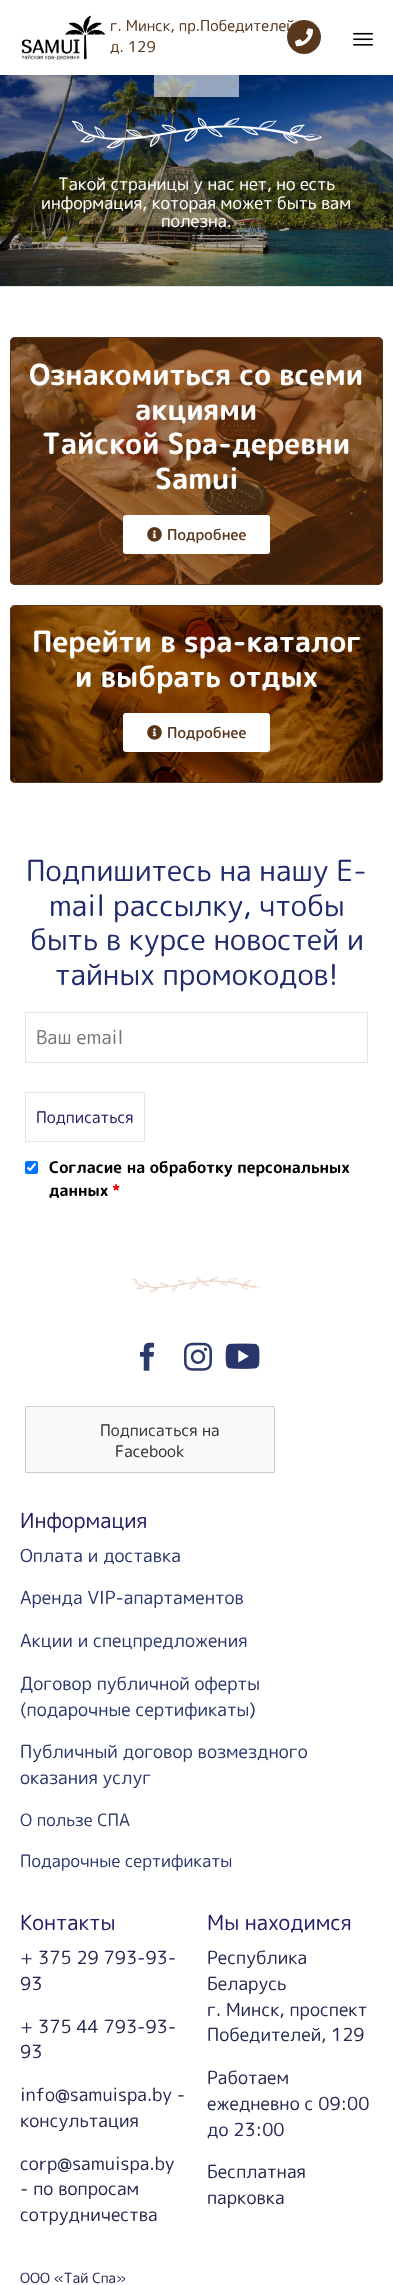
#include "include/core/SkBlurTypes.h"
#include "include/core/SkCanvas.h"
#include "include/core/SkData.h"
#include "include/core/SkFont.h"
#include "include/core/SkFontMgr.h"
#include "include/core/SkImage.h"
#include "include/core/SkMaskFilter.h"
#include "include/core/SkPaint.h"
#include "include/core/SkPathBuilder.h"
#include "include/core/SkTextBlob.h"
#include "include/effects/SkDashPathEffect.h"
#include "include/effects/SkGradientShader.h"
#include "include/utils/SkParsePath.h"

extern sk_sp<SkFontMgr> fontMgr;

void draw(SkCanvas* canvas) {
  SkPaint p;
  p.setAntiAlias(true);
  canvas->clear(SK_ColorWHITE);
  canvas->drawImageRect(SkImages::DeferredFromEncodedData(SkData::MakeFromFileName("images/1.png")), SkRect::MakeLTRB(21, 15, 106, 60), SkSamplingOptions());
  canvas->drawImageRect(SkImages::DeferredFromEncodedData(SkData::MakeFromFileName("images/2.png")), SkRect::MakeLTRB(353, 32, 373, 46), SkSamplingOptions());
  p.setColor(SkColorSetRGB(89, 55, 29));
  canvas->drawCircle(304, 37, 17, p);
  canvas->drawImageRect(SkImages::DeferredFromEncodedData(SkData::MakeFromFileName("images/3.png")), SkRect::MakeLTRB(295, 28, 313, 47), SkSamplingOptions());
  canvas->drawImageRect(SkImages::DeferredFromEncodedData(SkData::MakeFromFileName("images/4.png")), SkRect::MakeLTRB(0, 75, 393, 286), SkSamplingOptions());
  p.setColor(SkColorSetRGB(228, 228, 228));
  canvas->drawRect(SkRect::MakeLTRB(0, 286, 393, 287), p);
  p.setColor(SkColorSetARGB(148, 255, 255, 255));
  canvas->drawRect(SkRect::MakeLTRB(154, 75, 239, 97), p);
  canvas->drawImageRect(SkImages::DeferredFromEncodedData(SkData::MakeFromFileName("images/5.png")), SkRect::MakeLTRB(72, 117, 322, 149), SkSamplingOptions());
  canvas->drawImageRect(SkImages::DeferredFromEncodedData(SkData::MakeFromFileName("images/6.png")), SkRect::MakeLTRB(10, 337, 383, 585), SkSamplingOptions());
  p.setStyle(SkPaint::kStroke_Style);
  p.setStrokeWidth(1);
  p.setColor(SkColorSetRGB(89, 55, 29));
  canvas->drawRoundRect(SkRect::MakeLTRB(10.5f, 337.5f, 382.5f, 584.5f), 4.5f, 4.5f, p);
  p.setStyle(SkPaint::kFill_Style);
  p.setColor(SkColorSetARGB(128, 92, 42, 0));
  canvas->drawRoundRect(SkRect::MakeLTRB(11, 338, 382, 584), 5, 5, p);
  p.setColor(SK_ColorWHITE);
  canvas->drawRoundRect(SkRect::MakeLTRB(123, 515, 270, 554), 3, 3, p);
  canvas->drawImageRect(SkImages::DeferredFromEncodedData(SkData::MakeFromFileName("images/7.png")), SkRect::MakeLTRB(147, 527, 162, 542), SkSamplingOptions());
  canvas->drawImageRect(SkImages::DeferredFromEncodedData(SkData::MakeFromFileName("images/8.png")), SkRect::MakeLTRB(10, 605, 383, 783), SkSamplingOptions());
  p.setStyle(SkPaint::kStroke_Style);
  p.setColor(SkColorSetRGB(89, 55, 29));
  canvas->drawRoundRect(SkRect::MakeLTRB(10.5f, 605.5f, 382.5f, 782.5f), 4.5f, 4.5f, p);
  p.setStyle(SkPaint::kFill_Style);
  p.setColor(SkColorSetARGB(94, 0, 0, 0));
  canvas->drawRoundRect(SkRect::MakeLTRB(11, 606, 382, 782), 5, 5, p);
  p.setColor(SK_ColorWHITE);
  canvas->drawRoundRect(SkRect::MakeLTRB(123, 713, 270, 752), 3, 3, p);
  canvas->drawImageRect(SkImages::DeferredFromEncodedData(SkData::MakeFromFileName("images/7.png")), SkRect::MakeLTRB(147, 725, 162, 740), SkSamplingOptions());
  p.setStyle(SkPaint::kStroke_Style);
  p.setColor(SkColorSetRGB(228, 228, 228));
  canvas->drawRect(SkRect::MakeLTRB(25.5f, 1012.5f, 367.5f, 1062.5f), p);
  canvas->drawRect(SkRect::MakeLTRB(25.5f, 1092.5f, 144.5f, 1141.5f), p);
  p.setStyle(SkPaint::kFill_Style);
  p.setColor(SkColorSetRGB(0, 117, 255));
  canvas->drawRoundRect(SkRect::MakeLTRB(25, 1161, 38, 1174), 2, 2, p);
  p.setStyle(SkPaint::kStroke_Style);
  p.setStrokeWidth(2.1f);
  p.setColor(SK_ColorWHITE);
  canvas->drawPath(SkPathBuilder().moveTo(27.5f, 1167.5f).lineTo(30, 1170).lineTo(35.5f, 1163.5f).detach(), p);
  canvas->drawImageRect(SkImages::DeferredFromEncodedData(SkData::MakeFromFileName("images/9.png")), SkRect::MakeLTRB(132, 1276, 261, 1293), SkSamplingOptions());
  canvas->drawImageRect(SkImages::DeferredFromEncodedData(SkData::MakeFromFileName("images/10.png")), SkRect::MakeLTRB(140, 1342, 154, 1371), SkSamplingOptions());
  canvas->drawImageRect(SkImages::DeferredFromEncodedData(SkData::MakeFromFileName("images/11.png")), SkRect::MakeLTRB(184, 1342, 212, 1371), SkSamplingOptions());
  canvas->drawImageRect(SkImages::DeferredFromEncodedData(SkData::MakeFromFileName("images/12.png")), SkRect::MakeLTRB(225, 1343, 260, 1369), SkSamplingOptions());
  p.setStyle(SkPaint::kFill_Style);
  p.setColor(SkColorSetRGB(250, 250, 250));
  canvas->drawRoundRect(SkRect::MakeLTRB(25.5f, 1406.5f, 274.5f, 1472.5f), 0.5f, 0.5f, p);
  p.setStyle(SkPaint::kStroke_Style);
  p.setStrokeWidth(1);
  p.setColor(SkColorSetRGB(204, 204, 204));
  canvas->drawRoundRect(SkRect::MakeLTRB(25.5f, 1406.5f, 274.5f, 1472.5f), 0.5f, 0.5f, p);
  SkFont font1(fontMgr->matchFamilyStyle("Rounded Mplus 1c", SkFontStyle::Normal()), 15);
  font1.setSubpixel(true);
  p.setStyle(SkPaint::kFill_Style);
  p.setColor(SkColorSetRGB(89, 55, 29));
  canvas->drawString("г. Минск, пр.Победителей", 110, 31, font1, p);
  canvas->drawString("д. 129", 110, 52, font1, p);
  SkFont font2(fontMgr->matchFamilyStyle("Rounded Mplus 1c", SkFontStyle::Normal()), 17);
  font2.setSubpixel(true);
  p.setColor(SK_ColorWHITE);
  canvas->drawString("Такой страницы у нас нет, но есть", 58, 190, font2, p);
  canvas->drawString("информация, которая может быть вам", 41, 209, font2, p);
  canvas->drawString("полезна.", 161, 227, font2, p);
  SkFont font3(fontMgr->matchFamilyStyle("Rounded Mplus 1c Bold", SkFontStyle::Bold()), 29);
  font3.setSubpixel(true);
  canvas->drawString("Ознакомиться со всеми", 29, 385, font3, p);
  canvas->drawString("акциями", 135, 420, font3, p);
  canvas->drawString("Тайской Spa-деревни", 42, 454, font3, p);
  canvas->drawString("Samui", 155, 489, font3, p);
  SkFont font4(fontMgr->matchFamilyStyle("Rounded Mplus 1c", SkFontStyle(500, SkFontStyle::kNormal_Width, SkFontStyle::kUpright_Slant)), 15);
  font4.setSubpixel(true);
  p.setColor(SkColorSetRGB(89, 55, 29));
  canvas->drawString("Подробнее", 167, 540, font4, p);
  p.setColor(SK_ColorWHITE);
  canvas->drawString("Перейти в spa-каталог", 32, 652, font3, p);
  canvas->drawString("и выбрать отдых", 75, 687, font3, p);
  p.setColor(SkColorSetRGB(89, 55, 29));
  canvas->drawString("Подробнее", 167, 738, font4, p);
  SkFont font5(fontMgr->matchFamilyStyle("Rounded Mplus 1c", SkFontStyle::Normal()), 29);
  font5.setSubpixel(true);
  p.setColor(SkColorSetRGB(32, 43, 107));
  canvas->drawString("Подпишитесь на нашу E-", 26, 881, font5, p);
  canvas->drawString("mail рассылку, чтобы", 49, 916, font5, p);
  canvas->drawString("быть в курсе новостей и", 30, 950, font5, p);
  canvas->drawString("тайных промокодов!", 55, 985, font5, p);
  SkFont font6(fontMgr->matchFamilyStyle("Rounded Mplus 1c", SkFontStyle::Normal()), 19);
  font6.setSubpixel(true);
  p.setColor(SkColorSetRGB(117, 117, 117));
  canvas->drawString("Ваш email", 36, 1044, font6, p);
  SkFont font7(fontMgr->matchFamilyStyle("Rounded Mplus 1c", SkFontStyle::Normal()), 16);
  font7.setSubpixel(true);
  p.setColor(SkColorSetRGB(37, 32, 102));
  canvas->drawString("Подписаться", 36, 1123, font7, p);
  SkFont font8(fontMgr->matchFamilyStyle("Rounded Mplus 1c Bold", SkFontStyle::Bold()), 16);
  font8.setSubpixel(true);
  p.setColor(SK_ColorBLACK);
  canvas->drawString("Согласие на обработку персональных", 49, 1173, font8, p);
  canvas->drawString("данных", 49, 1196, font8, p);
  p.setColor(SkColorSetRGB(232, 0, 0));
  canvas->drawString("*", 112, 1196, font8, p);
  p.setColor(SkColorSetRGB(51, 51, 51));
  canvas->drawString("Подписаться на", 100, 1436, font7, p);
  canvas->drawString("Facebook", 115, 1457, font7, p);
  SkFont font9(fontMgr->matchFamilyStyle("Rounded Mplus 1c", SkFontStyle::Normal()), 21);
  font9.setSubpixel(true);
  p.setColor(SkColorSetRGB(37, 32, 102));
  canvas->drawString("Информация", 20, 1528, font9, p);
  SkFont font10(fontMgr->matchFamilyStyle("Rounded Mplus 1c", SkFontStyle::Normal()), 18);
  font10.setSubpixel(true);
  p.setColor(SkColorSetRGB(44, 57, 107));
  canvas->drawString("Оплата и доставка", 20, 1562, font10, p);
  canvas->drawString("Аренда VIP-апартаментов", 20, 1604, font10, p);
  canvas->drawString("Акции и спецпредложения", 20, 1647, font10, p);
  canvas->drawString("Договор публичной оферты", 20, 1690, font10, p);
  canvas->drawString("(подарочные сертификаты)", 20, 1716, font10, p);
  canvas->drawString("Публичный договор возмездного", 20, 1758, font10, p);
  canvas->drawString("оказания услуг", 20, 1784, font10, p);
  canvas->drawString("О пользе СПА", 20, 1826, font2, p);
  canvas->drawString("Подарочные сертификаты", 20, 1867, font2, p);
  p.setColor(SkColorSetRGB(37, 32, 102));
  canvas->drawString("Контакты", 20, 1930, font9, p);
  p.setColor(SkColorSetRGB(40, 42, 81));
  canvas->drawString("+ 375 29 793-93-", 20, 1964, font10, p);
  canvas->drawString("93", 20, 1990, font10, p);
  canvas->drawString("+ 375 44 793-93-", 20, 2033, font10, p);
  canvas->drawString("93", 20, 2058, font10, p);
  canvas->drawString("info@samuispa.by -", 20, 2101, font10, p);
  canvas->drawString("консультация", 20, 2127, font10, p);
  canvas->drawString("corp@samuispa.by", 20, 2170, font10, p);
  canvas->drawString("- по вопросам", 20, 2195, font10, p);
  canvas->drawString("сотрудничества", 20, 2221, font10, p);
  p.setColor(SkColorSetRGB(37, 32, 102));
  canvas->drawString("Мы находимся", 207, 1930, font9, p);
  p.setColor(SkColorSetRGB(40, 42, 81));
  canvas->drawString("Республика", 207, 1964, font10, p);
  canvas->drawString("Беларусь", 207, 1990, font10, p);
  canvas->drawString("г. Минск, проспект", 207, 2016, font10, p);
  canvas->drawString("Победителей, 129", 207, 2041, font10, p);
  canvas->drawString("Работаем", 207, 2084, font10, p);
  canvas->drawString("ежедневно с 09:00", 207, 2110, font10, p);
  canvas->drawString("до 23:00", 207, 2136, font10, p);
  canvas->drawString("Бесплатная", 207, 2178, font10, p);
  canvas->drawString("парковка", 207, 2204, font10, p);
  SkFont font11(fontMgr->matchFamilyStyle("Rounded Mplus 1c", SkFontStyle::Normal()), 14);
  font11.setSubpixel(true);
  canvas->drawString("ООО «Тай Спа»", 20, 2283, font11, p);
}
